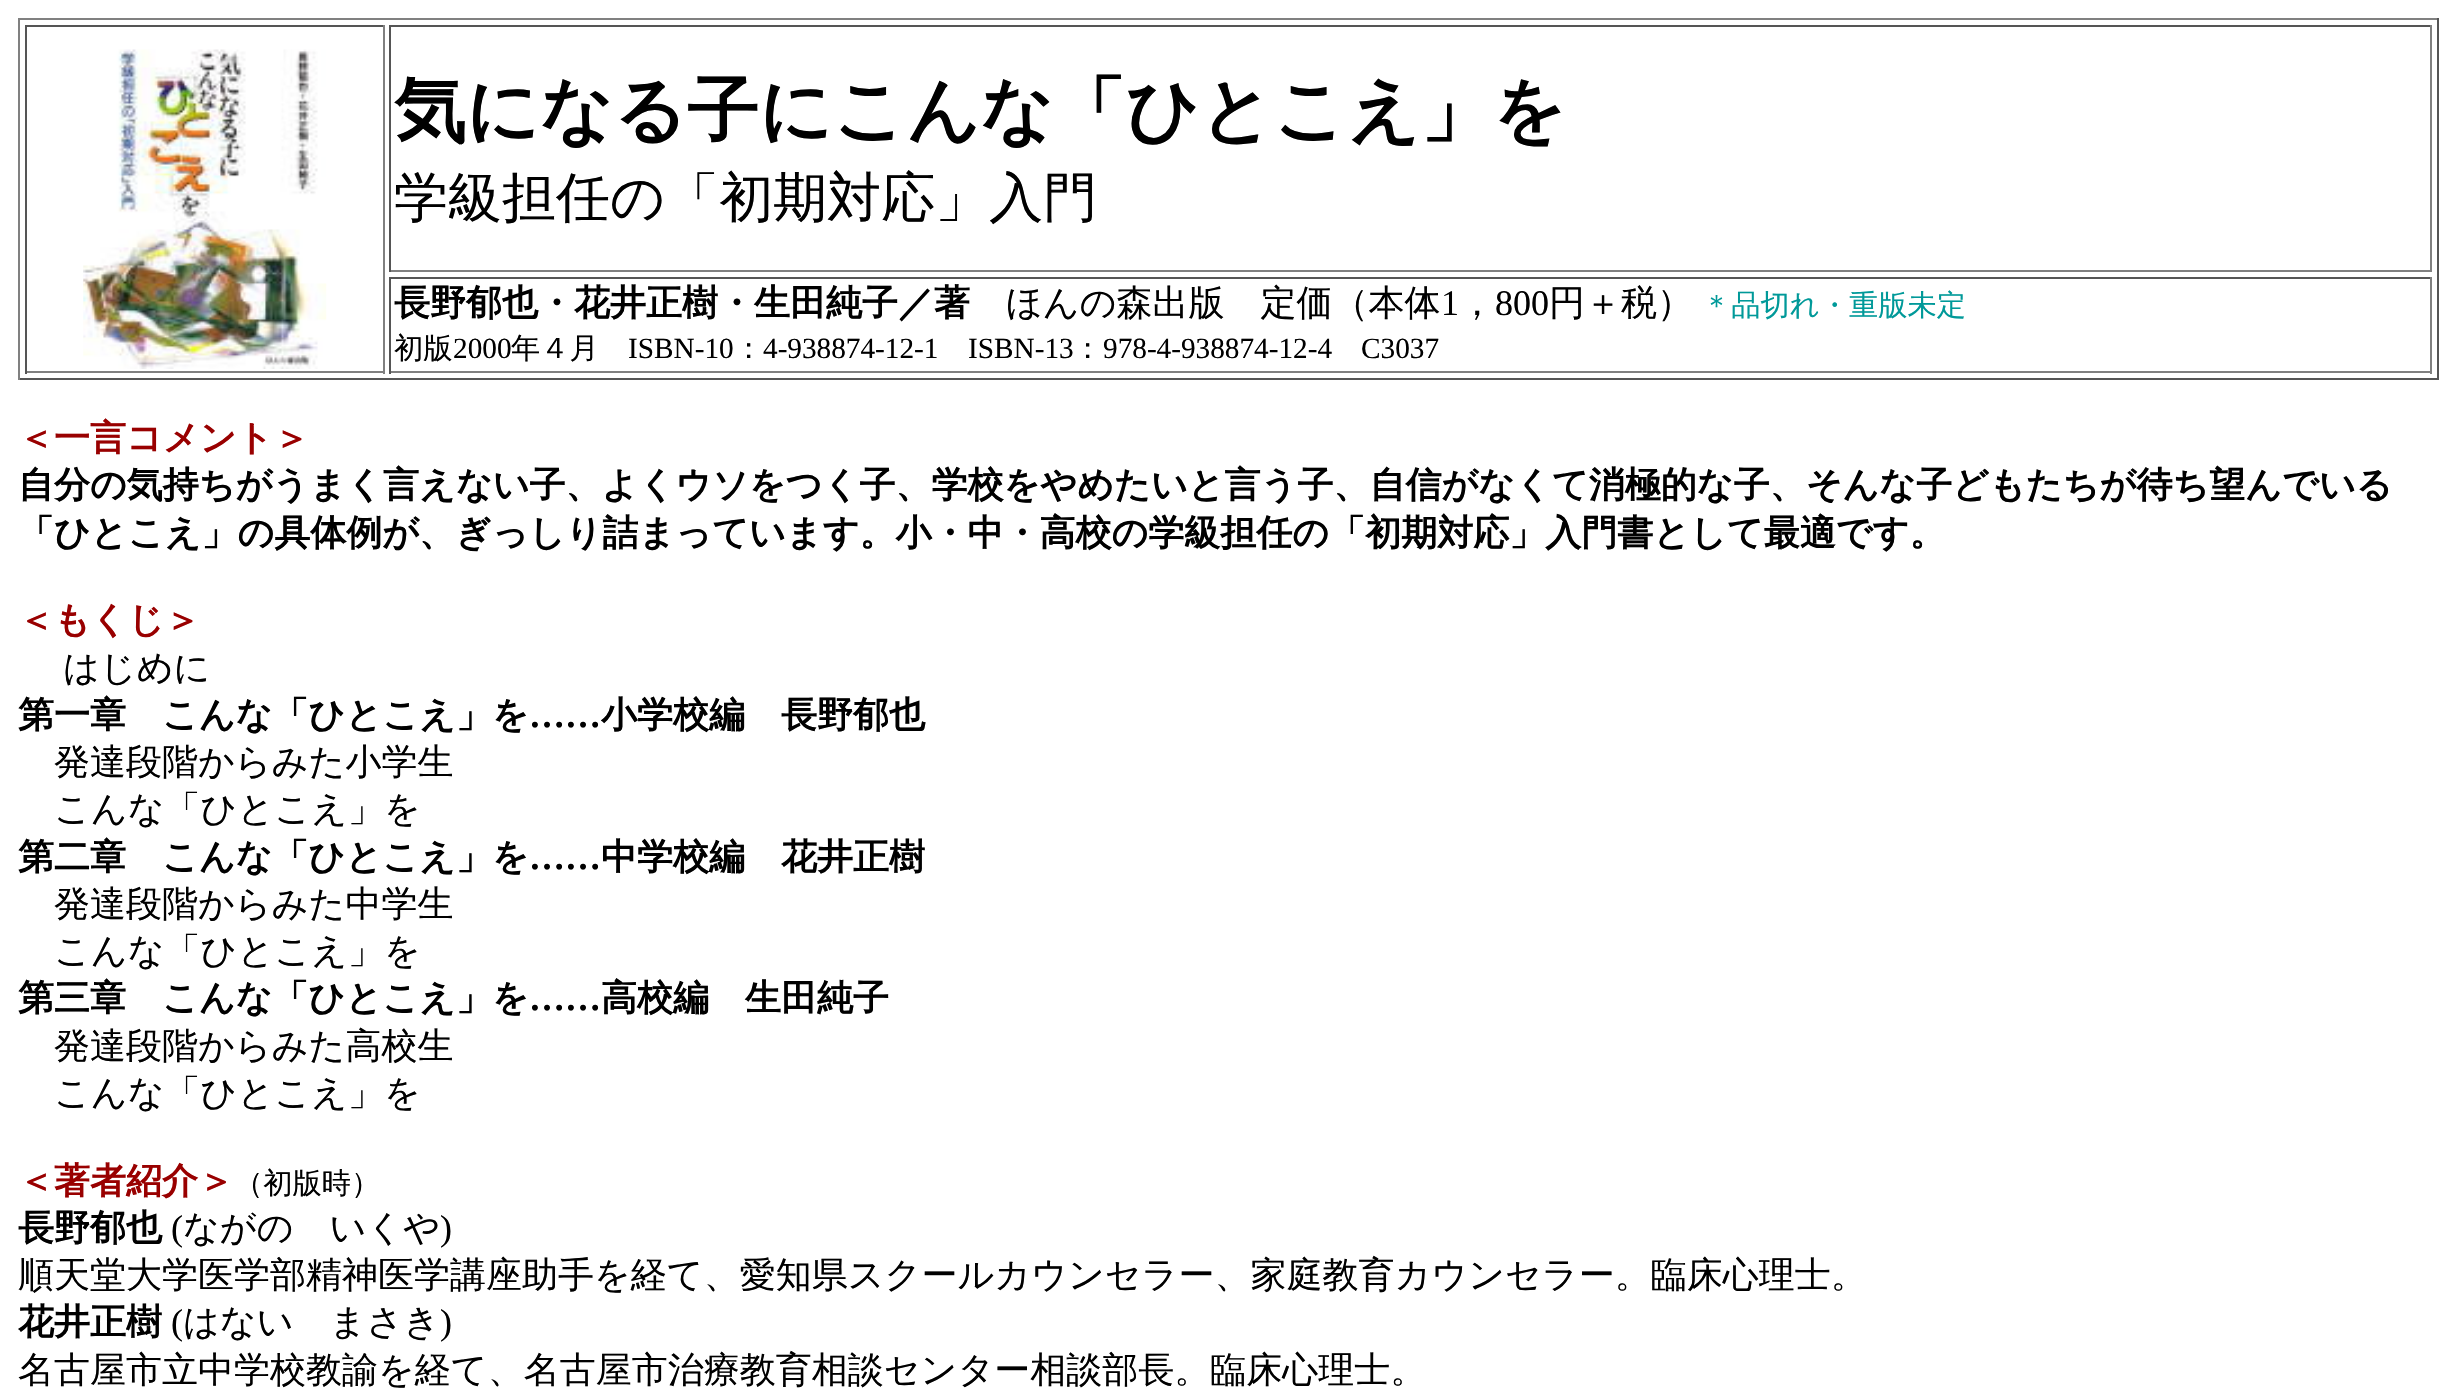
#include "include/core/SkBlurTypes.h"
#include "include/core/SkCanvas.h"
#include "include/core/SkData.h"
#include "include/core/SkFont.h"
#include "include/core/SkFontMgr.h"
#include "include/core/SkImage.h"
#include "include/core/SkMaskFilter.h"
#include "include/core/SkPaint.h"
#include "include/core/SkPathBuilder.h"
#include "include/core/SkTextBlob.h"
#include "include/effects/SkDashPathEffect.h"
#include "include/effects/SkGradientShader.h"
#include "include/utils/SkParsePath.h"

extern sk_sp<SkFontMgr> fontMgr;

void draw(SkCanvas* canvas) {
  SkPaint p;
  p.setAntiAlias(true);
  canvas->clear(SK_ColorWHITE);
  p.setColor(SkColorSetRGB(128, 128, 128));
  canvas->drawRect(SkRect::MakeLTRB(18, 18, 2439, 20), p);
  p.setColor(SkColorSetRGB(85, 85, 85));
  canvas->drawRect(SkRect::MakeLTRB(2437, 18, 2439, 380), p);
  canvas->drawRect(SkRect::MakeLTRB(18, 378, 2439, 380), p);
  p.setColor(SkColorSetRGB(128, 128, 128));
  canvas->drawRect(SkRect::MakeLTRB(18, 18, 20, 380), p);
  p.setColor(SkColorSetRGB(85, 85, 85));
  canvas->drawRect(SkRect::MakeLTRB(25, 25, 385, 27), p);
  p.setColor(SkColorSetRGB(128, 128, 128));
  canvas->drawRect(SkRect::MakeLTRB(383, 25, 385, 374), p);
  canvas->drawRect(SkRect::MakeLTRB(25, 371, 385, 373), p);
  p.setColor(SkColorSetRGB(85, 85, 85));
  canvas->drawRect(SkRect::MakeLTRB(25, 25, 27, 374), p);
  canvas->drawImageRect(SkImages::DeferredFromEncodedData(SkData::MakeFromFileName("images/1.png")), SkRect::MakeLTRB(83, 49, 327, 369), SkSamplingOptions());
  canvas->drawRect(SkRect::MakeLTRB(389, 25, 2432, 27), p);
  p.setColor(SkColorSetRGB(128, 128, 128));
  canvas->drawRect(SkRect::MakeLTRB(2430, 25, 2432, 272), p);
  canvas->drawRect(SkRect::MakeLTRB(389, 270, 2432, 272), p);
  p.setColor(SkColorSetRGB(85, 85, 85));
  canvas->drawRect(SkRect::MakeLTRB(389, 25, 391, 272), p);
  canvas->drawRect(SkRect::MakeLTRB(389, 277, 2432, 279), p);
  p.setColor(SkColorSetRGB(128, 128, 128));
  canvas->drawRect(SkRect::MakeLTRB(2430, 277, 2432, 374), p);
  canvas->drawRect(SkRect::MakeLTRB(389, 371, 2432, 373), p);
  p.setColor(SkColorSetRGB(85, 85, 85));
  canvas->drawRect(SkRect::MakeLTRB(389, 277, 391, 374), p);
  SkFont font1(fontMgr->matchFamilyStyle("WenQuanYi Zen Hei", SkFontStyle::Bold()), 72);
  font1.setSubpixel(true);
  p.setColor(SK_ColorBLACK);
  canvas->drawString("気になる子にこんな「ひとこえ」を", 394, 135, font1, p);
  SkFont font2(fontMgr->matchFamilyStyle("WenQuanYi Zen Hei", SkFontStyle(500, SkFontStyle::kNormal_Width, SkFontStyle::kUpright_Slant)), 54);
  font2.setSubpixel(true);
  canvas->drawString("学級担任の「初期対応」入門", 394, 216, font2, p);
  SkFont font3(fontMgr->matchFamilyStyle("WenQuanYi Zen Hei", SkFontStyle::Bold()), 36);
  font3.setSubpixel(true);
  canvas->drawString("長野郁也・花井正樹・生田純子／著", 394, 315, font3, p);
  SkFont font4(fontMgr->matchFamilyStyle("WenQuanYi Zen Hei", SkFontStyle(500, SkFontStyle::kNormal_Width, SkFontStyle::kUpright_Slant)), 36);
  font4.setSubpixel(true);
  canvas->drawString("ほんの森出版　定価（本体", 1006, 315, font4, p);
  SkFont font5(fontMgr->matchFamilyStyle("Liberation Serif", SkFontStyle::Normal()), 36);
  font5.setSubpixel(true);
  canvas->drawString("1", 1441, 315, font5, p);
  canvas->drawString("，", 1459, 315, font4, p);
  canvas->drawString("800", 1495, 315, font5, p);
  canvas->drawString("円＋税）", 1549, 315, font4, p);
  SkFont font6(fontMgr->matchFamilyStyle("WenQuanYi Zen Hei", SkFontStyle(500, SkFontStyle::kNormal_Width, SkFontStyle::kUpright_Slant)), 29.25f);
  font6.setSubpixel(true);
  p.setColor(SkColorSetRGB(0, 153, 153));
  canvas->drawString("＊品切れ・重版未定", 1702, 315, font6, p);
  p.setColor(SK_ColorBLACK);
  canvas->drawString("初版", 394, 358, font6, p);
  SkFont font7(fontMgr->matchFamilyStyle("Liberation Serif", SkFontStyle::Normal()), 29.25f);
  font7.setSubpixel(true);
  canvas->drawString("2000", 453, 358, font7, p);
  canvas->drawString("年４月", 511, 358, font6, p);
  canvas->drawString("ISBN-10", 628, 358, font7, p);
  canvas->drawString("：", 734, 358, font6, p);
  canvas->drawString("4-938874-12-1", 763, 358, font7, p);
  canvas->drawString("ISBN-13", 968, 358, font7, p);
  canvas->drawString("：", 1073, 358, font6, p);
  canvas->drawString("978-4-938874-12-4", 1103, 358, font7, p);
  canvas->drawString("C3037", 1361, 358, font7, p);
  p.setColor(SkColorSetRGB(153, 0, 0));
  canvas->drawString("＜一言コメント＞", 18, 450, font3, p);
  p.setColor(SK_ColorBLACK);
  canvas->drawString("自分の気持ちがうまく言えない子、よくウソをつく子、学校をやめたいと言う子、自信がなくて消極的な子、そんな子どもたちが待ち望んでいる", 18, 497, font3, p);
  canvas->drawString("「ひとこえ」の具体例が、ぎっしり詰まっています。小・中・高校の学級担任の「初期対応」入門書として最適です。", 18, 545, font3, p);
  p.setColor(SkColorSetRGB(153, 0, 0));
  canvas->drawString("＜もくじ＞", 18, 632, font3, p);
  p.setColor(SK_ColorBLACK);
  canvas->drawString("はじめに", 63, 680, font4, p);
  canvas->drawString("第一章　こんな「ひとこえ」を", 18, 727, font3, p);
  SkFont font8(fontMgr->matchFamilyStyle("Liberation Serif", SkFontStyle::Bold()), 36);
  font8.setSubpixel(true);
  canvas->drawString("……", 529, 727, font8, p);
  canvas->drawString("小学校編　長野郁也", 601, 727, font3, p);
  canvas->drawString("発達段階からみた小学生", 54, 774, font4, p);
  canvas->drawString("こんな「ひとこえ」を", 54, 821, font4, p);
  canvas->drawString("第二章　こんな「ひとこえ」を", 18, 869, font3, p);
  canvas->drawString("……", 529, 869, font8, p);
  canvas->drawString("中学校編　花井正樹", 601, 869, font3, p);
  canvas->drawString("発達段階からみた中学生", 54, 916, font4, p);
  canvas->drawString("こんな「ひとこえ」を", 54, 963, font4, p);
  canvas->drawString("第三章　こんな「ひとこえ」を", 18, 1010, font3, p);
  canvas->drawString("……", 529, 1010, font8, p);
  canvas->drawString("高校編　生田純子", 601, 1010, font3, p);
  canvas->drawString("発達段階からみた高校生", 54, 1058, font4, p);
  canvas->drawString("こんな「ひとこえ」を", 54, 1105, font4, p);
  p.setColor(SkColorSetRGB(153, 0, 0));
  canvas->drawString("＜著者紹介＞", 18, 1193, font3, p);
  p.setColor(SK_ColorBLACK);
  canvas->drawString("（初版時）", 234, 1193, font6, p);
  canvas->drawString("長野郁也", 18, 1240, font3, p);
  canvas->drawString("(", 171, 1240, font5, p);
  canvas->drawString("ながの　いくや", 183, 1240, font4, p);
  canvas->drawString(")", 440, 1240, font5, p);
  canvas->drawString("順天堂大学医学部精神医学講座助手を経て、愛知県スクールカウンセラー、家庭教育カウンセラー。臨床心理士。", 18, 1287, font4, p);
  canvas->drawString("花井正樹", 18, 1334, font3, p);
  canvas->drawString("(", 171, 1334, font5, p);
  canvas->drawString("はない　まさき", 183, 1334, font4, p);
  canvas->drawString(")", 440, 1334, font5, p);
  canvas->drawString("名古屋市立中学校教諭を経て、名古屋市治療教育相談センター相談部長。臨床心理士。", 18, 1382, font4, p);
}
